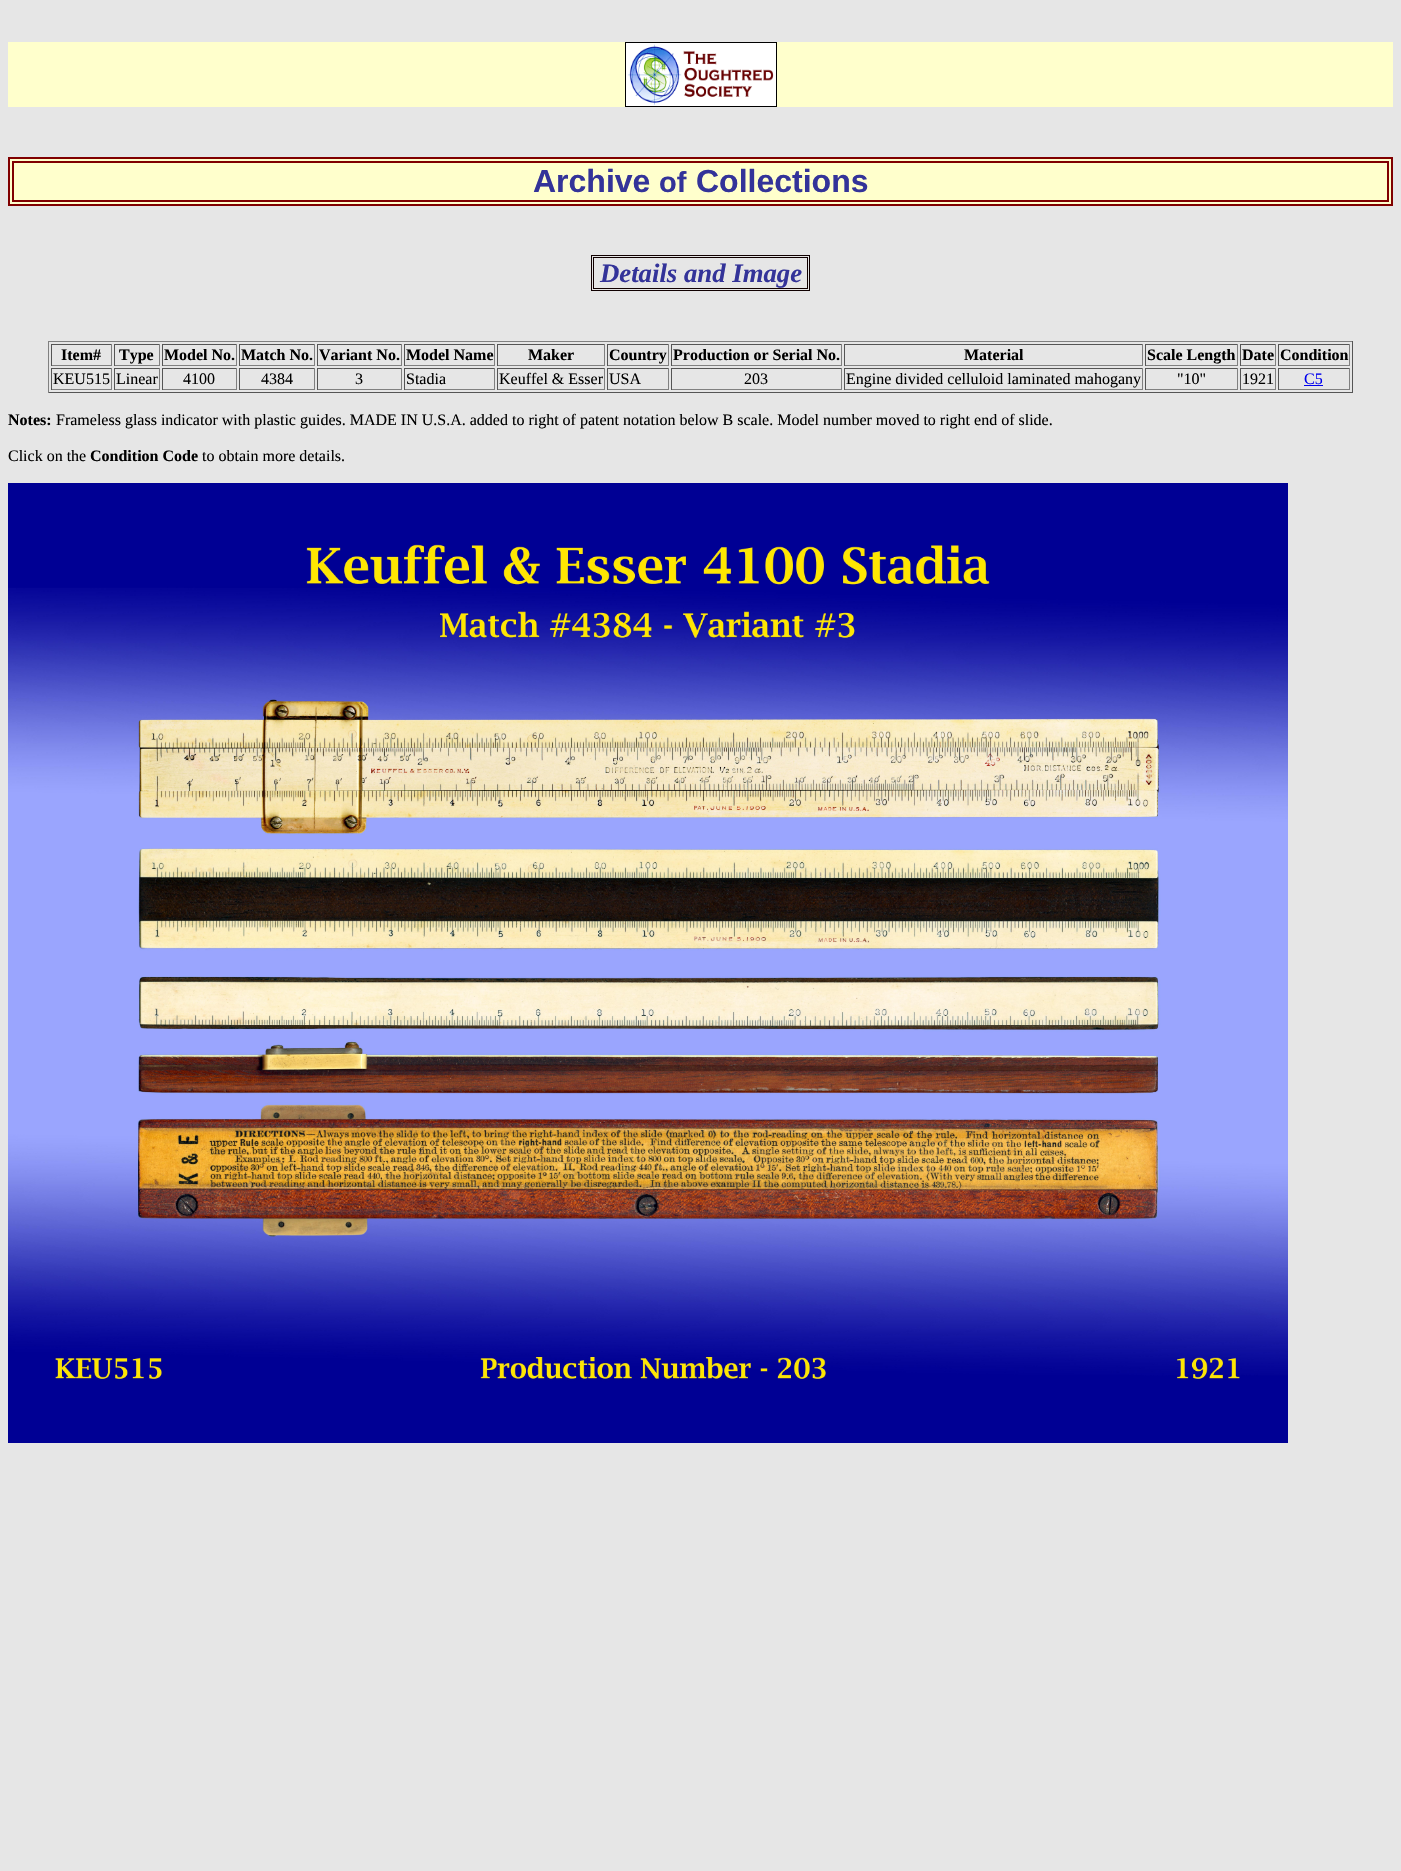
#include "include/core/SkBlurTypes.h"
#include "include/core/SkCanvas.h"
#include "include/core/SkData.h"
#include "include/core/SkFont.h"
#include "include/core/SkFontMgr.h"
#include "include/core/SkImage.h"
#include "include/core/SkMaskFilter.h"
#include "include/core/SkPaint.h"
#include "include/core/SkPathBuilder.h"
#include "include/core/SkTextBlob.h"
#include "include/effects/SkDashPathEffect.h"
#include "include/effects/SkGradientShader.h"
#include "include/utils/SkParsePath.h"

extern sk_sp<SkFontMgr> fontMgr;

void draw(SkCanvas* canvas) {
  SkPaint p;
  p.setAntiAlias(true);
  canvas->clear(SkColorSetRGB(230, 230, 230));
  p.setColor(SkColorSetRGB(255, 255, 204));
  canvas->drawRect(SkRect::MakeLTRB(8, 42, 1393, 107), p);
  p.setStyle(SkPaint::kStroke_Style);
  p.setStrokeWidth(1);
  p.setColor(SK_ColorBLACK);
  canvas->drawRect(SkRect::MakeLTRB(625.5f, 42.5f, 776.5f, 106.5f), p);
  canvas->drawImageRect(SkImages::DeferredFromEncodedData(SkData::MakeFromFileName("images/1.png")), SkRect::MakeLTRB(626, 43, 776, 106), SkSamplingOptions());
  p.setStyle(SkPaint::kFill_Style);
  p.setColor(SkColorSetRGB(255, 255, 204));
  canvas->drawRect(SkRect::MakeLTRB(9, 158, 1392, 205), p);
  p.setStyle(SkPaint::kStroke_Style);
  p.setStrokeWidth(2);
  p.setColor(SkColorSetRGB(128, 0, 0));
  canvas->drawRect(SkRect::MakeLTRB(9, 158, 1392, 205), p);
  canvas->drawRect(SkRect::MakeLTRB(13, 162, 1388, 201), p);
  p.setStrokeWidth(1);
  p.setColor(SkColorSetRGB(16, 0, 0));
  canvas->drawRect(SkRect::MakeLTRB(591.5f, 255.5f, 809.5f, 290.5f), p);
  canvas->drawRect(SkRect::MakeLTRB(593.5f, 257.5f, 807.5f, 288.5f), p);
  p.setStyle(SkPaint::kFill_Style);
  p.setColor(SkColorSetRGB(128, 128, 128));
  canvas->drawRect(SkRect::MakeLTRB(48, 341, 1353, 342), p);
  p.setColor(SkColorSetRGB(85, 85, 85));
  canvas->drawRect(SkRect::MakeLTRB(1352, 341, 1353, 393), p);
  canvas->drawRect(SkRect::MakeLTRB(48, 392, 1353, 393), p);
  p.setColor(SkColorSetRGB(128, 128, 128));
  canvas->drawRect(SkRect::MakeLTRB(48, 341, 49, 393), p);
  p.setColor(SkColorSetRGB(85, 85, 85));
  canvas->drawRect(SkRect::MakeLTRB(51, 344, 112, 345), p);
  p.setColor(SkColorSetRGB(128, 128, 128));
  canvas->drawRect(SkRect::MakeLTRB(111, 344, 112, 366), p);
  canvas->drawRect(SkRect::MakeLTRB(51, 365, 112, 366), p);
  p.setColor(SkColorSetRGB(85, 85, 85));
  canvas->drawRect(SkRect::MakeLTRB(51, 344, 52, 366), p);
  canvas->drawRect(SkRect::MakeLTRB(114, 344, 160, 345), p);
  p.setColor(SkColorSetRGB(128, 128, 128));
  canvas->drawRect(SkRect::MakeLTRB(159, 344, 160, 366), p);
  canvas->drawRect(SkRect::MakeLTRB(114, 365, 160, 366), p);
  p.setColor(SkColorSetRGB(85, 85, 85));
  canvas->drawRect(SkRect::MakeLTRB(114, 344, 115, 366), p);
  canvas->drawRect(SkRect::MakeLTRB(162, 344, 237, 345), p);
  p.setColor(SkColorSetRGB(128, 128, 128));
  canvas->drawRect(SkRect::MakeLTRB(236, 344, 237, 366), p);
  canvas->drawRect(SkRect::MakeLTRB(162, 365, 237, 366), p);
  p.setColor(SkColorSetRGB(85, 85, 85));
  canvas->drawRect(SkRect::MakeLTRB(162, 344, 163, 366), p);
  canvas->drawRect(SkRect::MakeLTRB(239, 344, 315, 345), p);
  p.setColor(SkColorSetRGB(128, 128, 128));
  canvas->drawRect(SkRect::MakeLTRB(314, 344, 315, 366), p);
  canvas->drawRect(SkRect::MakeLTRB(239, 365, 315, 366), p);
  p.setColor(SkColorSetRGB(85, 85, 85));
  canvas->drawRect(SkRect::MakeLTRB(239, 344, 240, 366), p);
  canvas->drawRect(SkRect::MakeLTRB(317, 344, 402, 345), p);
  p.setColor(SkColorSetRGB(128, 128, 128));
  canvas->drawRect(SkRect::MakeLTRB(401, 344, 402, 366), p);
  canvas->drawRect(SkRect::MakeLTRB(317, 365, 402, 366), p);
  p.setColor(SkColorSetRGB(85, 85, 85));
  canvas->drawRect(SkRect::MakeLTRB(317, 344, 318, 366), p);
  canvas->drawRect(SkRect::MakeLTRB(404, 344, 495, 345), p);
  p.setColor(SkColorSetRGB(128, 128, 128));
  canvas->drawRect(SkRect::MakeLTRB(494, 344, 495, 366), p);
  canvas->drawRect(SkRect::MakeLTRB(404, 365, 495, 366), p);
  p.setColor(SkColorSetRGB(85, 85, 85));
  canvas->drawRect(SkRect::MakeLTRB(404, 344, 405, 366), p);
  canvas->drawRect(SkRect::MakeLTRB(497, 344, 605, 345), p);
  p.setColor(SkColorSetRGB(128, 128, 128));
  canvas->drawRect(SkRect::MakeLTRB(604, 344, 605, 366), p);
  canvas->drawRect(SkRect::MakeLTRB(497, 365, 605, 366), p);
  p.setColor(SkColorSetRGB(85, 85, 85));
  canvas->drawRect(SkRect::MakeLTRB(497, 344, 498, 366), p);
  canvas->drawRect(SkRect::MakeLTRB(607, 344, 669, 345), p);
  p.setColor(SkColorSetRGB(128, 128, 128));
  canvas->drawRect(SkRect::MakeLTRB(668, 344, 669, 366), p);
  canvas->drawRect(SkRect::MakeLTRB(607, 365, 669, 366), p);
  p.setColor(SkColorSetRGB(85, 85, 85));
  canvas->drawRect(SkRect::MakeLTRB(607, 344, 608, 366), p);
  canvas->drawRect(SkRect::MakeLTRB(671, 344, 842, 345), p);
  p.setColor(SkColorSetRGB(128, 128, 128));
  canvas->drawRect(SkRect::MakeLTRB(841, 344, 842, 366), p);
  canvas->drawRect(SkRect::MakeLTRB(671, 365, 842, 366), p);
  p.setColor(SkColorSetRGB(85, 85, 85));
  canvas->drawRect(SkRect::MakeLTRB(671, 344, 672, 366), p);
  canvas->drawRect(SkRect::MakeLTRB(844, 344, 1143, 345), p);
  p.setColor(SkColorSetRGB(128, 128, 128));
  canvas->drawRect(SkRect::MakeLTRB(1142, 344, 1143, 366), p);
  canvas->drawRect(SkRect::MakeLTRB(844, 365, 1143, 366), p);
  p.setColor(SkColorSetRGB(85, 85, 85));
  canvas->drawRect(SkRect::MakeLTRB(844, 344, 845, 366), p);
  canvas->drawRect(SkRect::MakeLTRB(1145, 344, 1238, 345), p);
  p.setColor(SkColorSetRGB(128, 128, 128));
  canvas->drawRect(SkRect::MakeLTRB(1237, 344, 1238, 366), p);
  canvas->drawRect(SkRect::MakeLTRB(1145, 365, 1238, 366), p);
  p.setColor(SkColorSetRGB(85, 85, 85));
  canvas->drawRect(SkRect::MakeLTRB(1145, 344, 1146, 366), p);
  canvas->drawRect(SkRect::MakeLTRB(1240, 344, 1276, 345), p);
  p.setColor(SkColorSetRGB(128, 128, 128));
  canvas->drawRect(SkRect::MakeLTRB(1275, 344, 1276, 366), p);
  canvas->drawRect(SkRect::MakeLTRB(1240, 365, 1276, 366), p);
  p.setColor(SkColorSetRGB(85, 85, 85));
  canvas->drawRect(SkRect::MakeLTRB(1240, 344, 1241, 366), p);
  canvas->drawRect(SkRect::MakeLTRB(1278, 344, 1350, 345), p);
  p.setColor(SkColorSetRGB(128, 128, 128));
  canvas->drawRect(SkRect::MakeLTRB(1349, 344, 1350, 366), p);
  canvas->drawRect(SkRect::MakeLTRB(1278, 365, 1350, 366), p);
  p.setColor(SkColorSetRGB(85, 85, 85));
  canvas->drawRect(SkRect::MakeLTRB(1278, 344, 1279, 366), p);
  canvas->drawRect(SkRect::MakeLTRB(51, 368, 112, 369), p);
  p.setColor(SkColorSetRGB(128, 128, 128));
  canvas->drawRect(SkRect::MakeLTRB(111, 368, 112, 390), p);
  canvas->drawRect(SkRect::MakeLTRB(51, 389, 112, 390), p);
  p.setColor(SkColorSetRGB(85, 85, 85));
  canvas->drawRect(SkRect::MakeLTRB(51, 368, 52, 390), p);
  canvas->drawRect(SkRect::MakeLTRB(114, 368, 160, 369), p);
  p.setColor(SkColorSetRGB(128, 128, 128));
  canvas->drawRect(SkRect::MakeLTRB(159, 368, 160, 390), p);
  canvas->drawRect(SkRect::MakeLTRB(114, 389, 160, 390), p);
  p.setColor(SkColorSetRGB(85, 85, 85));
  canvas->drawRect(SkRect::MakeLTRB(114, 368, 115, 390), p);
  canvas->drawRect(SkRect::MakeLTRB(162, 368, 237, 369), p);
  p.setColor(SkColorSetRGB(128, 128, 128));
  canvas->drawRect(SkRect::MakeLTRB(236, 368, 237, 390), p);
  canvas->drawRect(SkRect::MakeLTRB(162, 389, 237, 390), p);
  p.setColor(SkColorSetRGB(85, 85, 85));
  canvas->drawRect(SkRect::MakeLTRB(162, 368, 163, 390), p);
  canvas->drawRect(SkRect::MakeLTRB(239, 368, 315, 369), p);
  p.setColor(SkColorSetRGB(128, 128, 128));
  canvas->drawRect(SkRect::MakeLTRB(314, 368, 315, 390), p);
  canvas->drawRect(SkRect::MakeLTRB(239, 389, 315, 390), p);
  p.setColor(SkColorSetRGB(85, 85, 85));
  canvas->drawRect(SkRect::MakeLTRB(239, 368, 240, 390), p);
  canvas->drawRect(SkRect::MakeLTRB(317, 368, 402, 369), p);
  p.setColor(SkColorSetRGB(128, 128, 128));
  canvas->drawRect(SkRect::MakeLTRB(401, 368, 402, 390), p);
  canvas->drawRect(SkRect::MakeLTRB(317, 389, 402, 390), p);
  p.setColor(SkColorSetRGB(85, 85, 85));
  canvas->drawRect(SkRect::MakeLTRB(317, 368, 318, 390), p);
  canvas->drawRect(SkRect::MakeLTRB(404, 368, 495, 369), p);
  p.setColor(SkColorSetRGB(128, 128, 128));
  canvas->drawRect(SkRect::MakeLTRB(494, 368, 495, 390), p);
  canvas->drawRect(SkRect::MakeLTRB(404, 389, 495, 390), p);
  p.setColor(SkColorSetRGB(85, 85, 85));
  canvas->drawRect(SkRect::MakeLTRB(404, 368, 405, 390), p);
  canvas->drawRect(SkRect::MakeLTRB(497, 368, 605, 369), p);
  p.setColor(SkColorSetRGB(128, 128, 128));
  canvas->drawRect(SkRect::MakeLTRB(604, 368, 605, 390), p);
  canvas->drawRect(SkRect::MakeLTRB(497, 389, 605, 390), p);
  p.setColor(SkColorSetRGB(85, 85, 85));
  canvas->drawRect(SkRect::MakeLTRB(497, 368, 498, 390), p);
  canvas->drawRect(SkRect::MakeLTRB(607, 368, 669, 369), p);
  p.setColor(SkColorSetRGB(128, 128, 128));
  canvas->drawRect(SkRect::MakeLTRB(668, 368, 669, 390), p);
  canvas->drawRect(SkRect::MakeLTRB(607, 389, 669, 390), p);
  p.setColor(SkColorSetRGB(85, 85, 85));
  canvas->drawRect(SkRect::MakeLTRB(607, 368, 608, 390), p);
  canvas->drawRect(SkRect::MakeLTRB(671, 368, 842, 369), p);
  p.setColor(SkColorSetRGB(128, 128, 128));
  canvas->drawRect(SkRect::MakeLTRB(841, 368, 842, 390), p);
  canvas->drawRect(SkRect::MakeLTRB(671, 389, 842, 390), p);
  p.setColor(SkColorSetRGB(85, 85, 85));
  canvas->drawRect(SkRect::MakeLTRB(671, 368, 672, 390), p);
  canvas->drawRect(SkRect::MakeLTRB(844, 368, 1143, 369), p);
  p.setColor(SkColorSetRGB(128, 128, 128));
  canvas->drawRect(SkRect::MakeLTRB(1142, 368, 1143, 390), p);
  canvas->drawRect(SkRect::MakeLTRB(844, 389, 1143, 390), p);
  p.setColor(SkColorSetRGB(85, 85, 85));
  canvas->drawRect(SkRect::MakeLTRB(844, 368, 845, 390), p);
  canvas->drawRect(SkRect::MakeLTRB(1145, 368, 1238, 369), p);
  p.setColor(SkColorSetRGB(128, 128, 128));
  canvas->drawRect(SkRect::MakeLTRB(1237, 368, 1238, 390), p);
  canvas->drawRect(SkRect::MakeLTRB(1145, 389, 1238, 390), p);
  p.setColor(SkColorSetRGB(85, 85, 85));
  canvas->drawRect(SkRect::MakeLTRB(1145, 368, 1146, 390), p);
  canvas->drawRect(SkRect::MakeLTRB(1240, 368, 1276, 369), p);
  p.setColor(SkColorSetRGB(128, 128, 128));
  canvas->drawRect(SkRect::MakeLTRB(1275, 368, 1276, 390), p);
  canvas->drawRect(SkRect::MakeLTRB(1240, 389, 1276, 390), p);
  p.setColor(SkColorSetRGB(85, 85, 85));
  canvas->drawRect(SkRect::MakeLTRB(1240, 368, 1241, 390), p);
  canvas->drawRect(SkRect::MakeLTRB(1278, 368, 1350, 369), p);
  p.setColor(SkColorSetRGB(128, 128, 128));
  canvas->drawRect(SkRect::MakeLTRB(1349, 368, 1350, 390), p);
  canvas->drawRect(SkRect::MakeLTRB(1278, 389, 1350, 390), p);
  p.setColor(SkColorSetRGB(85, 85, 85));
  canvas->drawRect(SkRect::MakeLTRB(1278, 368, 1279, 390), p);
  p.setColor(SkColorSetRGB(0, 0, 238));
  canvas->drawRect(SkRect::MakeLTRB(1304, 385, 1323, 386), p);
  canvas->drawImageRect(SkImages::DeferredFromEncodedData(SkData::MakeFromFileName("images/2.png")), SkRect::MakeLTRB(8, 483, 1288, 1443), SkSamplingOptions());
  SkFont font1(fontMgr->matchFamilyStyle("Liberation Sans", SkFontStyle::Bold()), 32);
  font1.setSubpixel(true);
  p.setColor(SkColorSetRGB(51, 51, 153));
  canvas->drawString("Archive", 533, 192, font1, p);
  SkFont font2(fontMgr->matchFamilyStyle("Liberation Sans", SkFontStyle::Bold()), 29);
  font2.setSubpixel(true);
  canvas->drawString("of", 659, 192, font2, p);
  canvas->drawString("Collections", 696, 192, font1, p);
  SkFont font3(fontMgr->matchFamilyStyle("Liberation Serif", SkFontStyle::BoldItalic()), 26.75f);
  font3.setSubpixel(true);
  canvas->drawString("Details and Image", 600, 282, font3, p);
  SkFont font4(fontMgr->matchFamilyStyle("Liberation Serif", SkFontStyle::Bold()), 16);
  font4.setSubpixel(true);
  p.setColor(SK_ColorBLACK);
  canvas->drawString("Item#", 61, 360, font4, p);
  canvas->drawString("Type", 119, 360, font4, p);
  canvas->drawString("Model No.", 164, 360, font4, p);
  canvas->drawString("Match No.", 241, 360, font4, p);
  canvas->drawString("Variant No.", 319, 360, font4, p);
  canvas->drawString("Model Name", 406, 360, font4, p);
  canvas->drawString("Maker", 528, 360, font4, p);
  canvas->drawString("Country", 609, 360, font4, p);
  canvas->drawString("Production or Serial No.", 673, 360, font4, p);
  canvas->drawString("Material", 964, 360, font4, p);
  canvas->drawString("Scale Length", 1147, 360, font4, p);
  canvas->drawString("Date", 1242, 360, font4, p);
  canvas->drawString("Condition", 1280, 360, font4, p);
  SkFont font5(fontMgr->matchFamilyStyle("Liberation Serif", SkFontStyle::Normal()), 16);
  font5.setSubpixel(true);
  canvas->drawString("KEU515", 53, 384, font5, p);
  canvas->drawString("Linear", 116, 384, font5, p);
  canvas->drawString("4100", 183, 384, font5, p);
  canvas->drawString("4384", 261, 384, font5, p);
  canvas->drawString("3", 355, 384, font5, p);
  canvas->drawString("Stadia", 406, 384, font5, p);
  canvas->drawString("Keuffel & Esser", 499, 384, font5, p);
  canvas->drawString("USA", 609, 384, font5, p);
  canvas->drawString("203", 744, 384, font5, p);
  canvas->drawString("Engine divided celluloid laminated mahogany", 846, 384, font5, p);
  canvas->drawString("\"10\"", 1177, 384, font5, p);
  canvas->drawString("1921", 1242, 384, font5, p);
  p.setColor(SkColorSetRGB(0, 0, 238));
  canvas->drawString("C5", 1304, 384, font5, p);
  p.setColor(SK_ColorBLACK);
  canvas->drawString("Notes:", 8, 425, font4, p);
  canvas->drawString("Frameless glass indicator with plastic guides. MADE IN U.S.A. added to right of patent notation below B scale. Model number moved to right end of slide.", 56, 425, font5, p);
  canvas->drawString("Click on the", 8, 461, font5, p);
  canvas->drawString("Condition Code", 90, 461, font4, p);
  canvas->drawString("to obtain more details.", 202, 461, font5, p);
}
